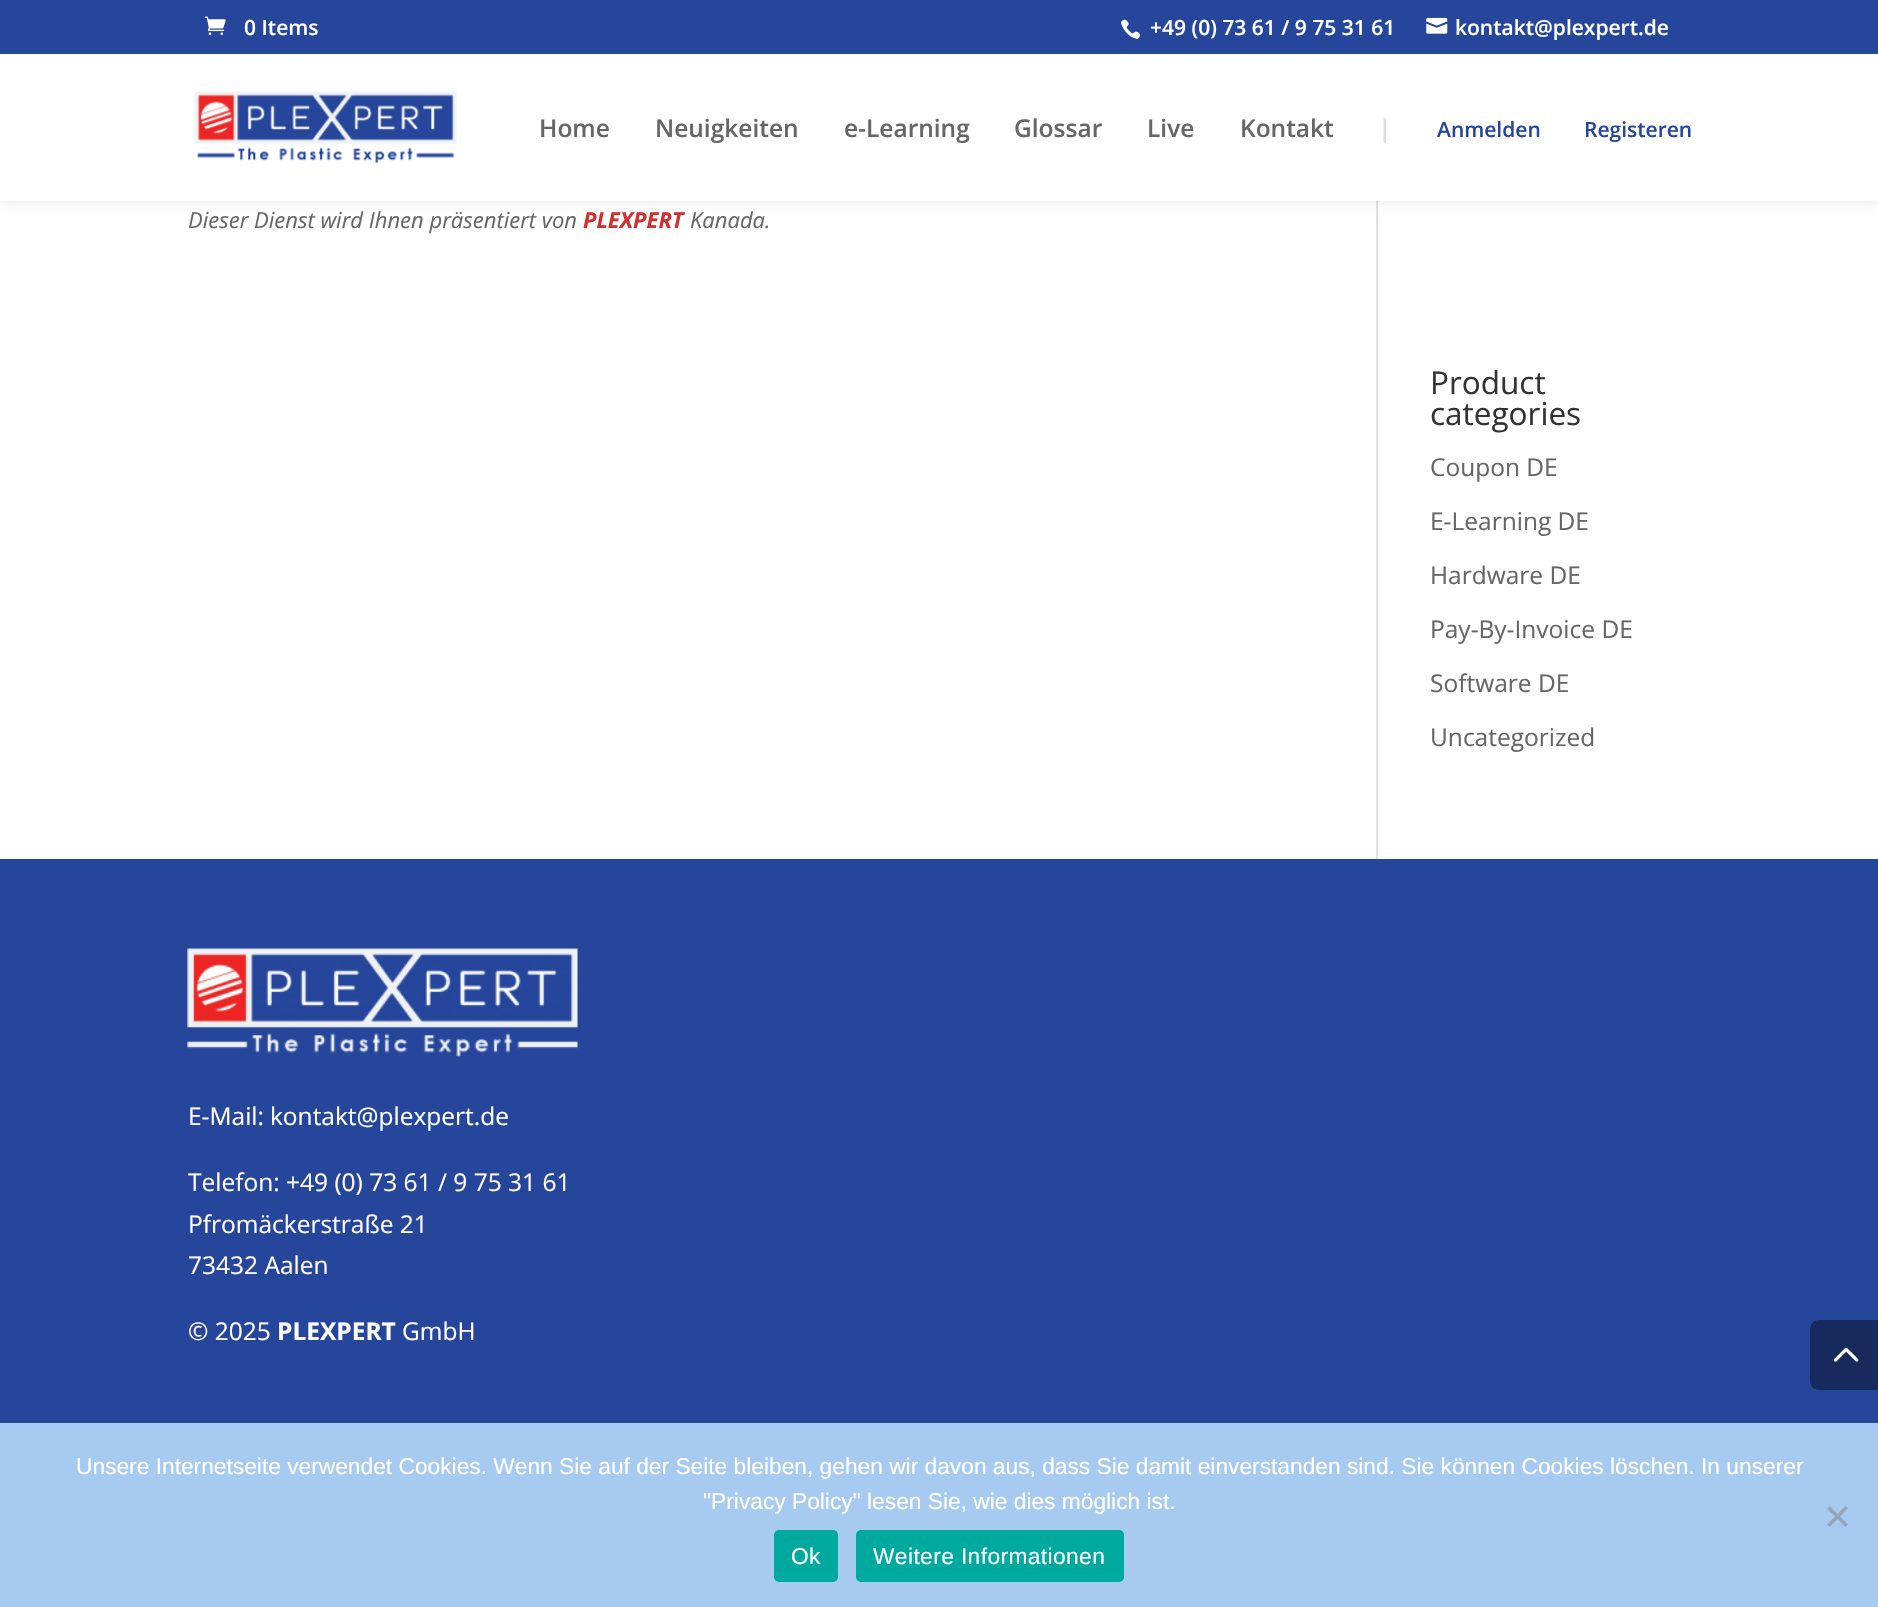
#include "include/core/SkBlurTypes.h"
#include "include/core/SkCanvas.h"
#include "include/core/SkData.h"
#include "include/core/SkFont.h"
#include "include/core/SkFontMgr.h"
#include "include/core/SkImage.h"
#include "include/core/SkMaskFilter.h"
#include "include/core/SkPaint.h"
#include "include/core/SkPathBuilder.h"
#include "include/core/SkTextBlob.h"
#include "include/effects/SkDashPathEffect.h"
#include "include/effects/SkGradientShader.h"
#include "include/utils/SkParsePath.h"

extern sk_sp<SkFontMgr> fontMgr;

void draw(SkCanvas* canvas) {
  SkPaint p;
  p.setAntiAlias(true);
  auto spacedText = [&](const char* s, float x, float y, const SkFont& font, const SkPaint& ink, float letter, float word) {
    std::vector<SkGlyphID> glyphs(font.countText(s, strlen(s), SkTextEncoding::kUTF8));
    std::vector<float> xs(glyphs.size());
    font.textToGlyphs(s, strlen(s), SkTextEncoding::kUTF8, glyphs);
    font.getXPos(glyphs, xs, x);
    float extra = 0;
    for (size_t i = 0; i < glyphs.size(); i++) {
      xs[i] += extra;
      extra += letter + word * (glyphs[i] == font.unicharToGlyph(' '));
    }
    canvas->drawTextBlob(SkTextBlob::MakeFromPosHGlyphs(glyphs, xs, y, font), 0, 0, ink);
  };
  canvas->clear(SK_ColorWHITE);
  p.setColor(SkColorSetRGB(226, 226, 226));
  canvas->drawRect(SkRect::MakeLTRB(1376, 201, 1378, 859), p);
  p.setColor(SkColorSetARGB(26, 0, 0, 0));
  p.setMaskFilter(SkMaskFilter::MakeBlur(kNormal_SkBlurStyle, 6));
  canvas->drawRect(SkRect::MakeLTRB(0, 54, 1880, 201), p);
  p.setMaskFilter(nullptr);
  p.setColor(SkColorSetRGB(38, 70, 156));
  canvas->drawRect(SkRect::MakeLTRB(0, 0, 1878, 54), p);
  canvas->drawImageRect(SkImages::DeferredFromEncodedData(SkData::MakeFromFileName("images/1.png")), SkRect::MakeLTRB(204, 16, 226, 35), SkSamplingOptions());
  canvas->drawImageRect(SkImages::DeferredFromEncodedData(SkData::MakeFromFileName("images/2.png")), SkRect::MakeLTRB(1120, 19, 1141, 39), SkSamplingOptions());
  canvas->drawImageRect(SkImages::DeferredFromEncodedData(SkData::MakeFromFileName("images/3.png")), SkRect::MakeLTRB(1426, 17, 1448, 34), SkSamplingOptions());
  p.setColor(SK_ColorWHITE);
  canvas->drawRect(SkRect::MakeLTRB(0, 54, 1878, 201), p);
  canvas->drawImageRect(SkImages::DeferredFromEncodedData(SkData::MakeFromFileName("images/4.png")), SkRect::MakeLTRB(194, 91, 457, 164), SkSamplingOptions());
  p.setColor(SkColorSetRGB(38, 70, 156));
  canvas->drawRect(SkRect::MakeLTRB(0, 859, 1878, 1423), p);
  canvas->drawImageRect(SkImages::DeferredFromEncodedData(SkData::MakeFromFileName("images/5.png")), SkRect::MakeLTRB(187, 948, 578, 1057), SkSamplingOptions());
  p.setColor(SkColorSetRGB(23, 42, 94));
  canvas->drawPath(SkPathBuilder().moveTo(1819, 1320).lineTo(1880, 1320).lineTo(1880, 1390).lineTo(1819, 1390).cubicTo(1814, 1390, 1810, 1386, 1810, 1381).lineTo(1810, 1329).cubicTo(1810, 1324, 1814, 1320, 1819, 1320).close().detach(), p);
  canvas->drawImageRect(SkImages::DeferredFromEncodedData(SkData::MakeFromFileName("images/6.png")), SkRect::MakeLTRB(1833, 1347, 1859, 1362), SkSamplingOptions());
  p.setColor(SkColorSetRGB(167, 202, 240));
  canvas->drawRect(SkRect::MakeLTRB(0, 1423, 1878, 1607), p);
  p.setColor(SkColorSetRGB(148, 165, 184));
  canvas->drawPath(SkPathBuilder().moveTo(1845.5f, 1506).lineTo(1848, 1508.5f).lineTo(1829.5f, 1527).lineTo(1827, 1524.5f).close().detach(), p);
  canvas->drawPath(SkPathBuilder().moveTo(1827, 1508.5f).lineTo(1829.5f, 1506).lineTo(1848, 1524.5f).lineTo(1845.5f, 1527).close().detach(), p);
  p.setColor(SkColorSetRGB(0, 169, 157));
  canvas->drawRoundRect(SkRect::MakeLTRB(774, 1530, 838, 1582), 5, 5, p);
  canvas->drawRoundRect(SkRect::MakeLTRB(856, 1530, 1124, 1582), 5, 5, p);
  SkFont font1(fontMgr->matchFamilyStyle("Open Sans", SkFontStyle(600, SkFontStyle::kNormal_Width, SkFontStyle::kUpright_Slant)), 21);
  font1.setSubpixel(true);
  p.setColor(SK_ColorWHITE);
  canvas->drawString("0 Items", 244, 35, font1, p);
  canvas->drawString("+49 (0) 73 61 / 9 75 31 61", 1150, 35, font1, p);
  canvas->drawString("kontakt@plexpert.de", 1455, 35, font1, p);
  SkFont font2(fontMgr->matchFamilyStyle("Open Sans", SkFontStyle(600, SkFontStyle::kNormal_Width, SkFontStyle::kUpright_Slant)), 24.5f);
  font2.setSubpixel(true);
  p.setColor(SkColorSetRGB(102, 102, 102));
  canvas->drawString("Home", 539, 137, font2, p);
  canvas->drawString("Neuigkeiten", 655, 137, font2, p);
  canvas->drawString("e-Learning", 844, 137, font2, p);
  canvas->drawString("Glossar", 1014, 137, font2, p);
  canvas->drawString("Live", 1147, 137, font2, p);
  canvas->drawString("Kontakt", 1240, 137, font2, p);
  p.setColor(SkColorSetRGB(220, 220, 220));
  canvas->drawString("|", 1378, 137, font2, p);
  p.setColor(SkColorSetRGB(38, 70, 156));
  canvas->drawString("Anmelden", 1437, 137, font1, p);
  canvas->drawString("Registeren", 1584, 137, font1, p);
  SkFont font3(fontMgr->matchFamilyStyle("Open Sans", SkFontStyle::Italic()), 22);
  font3.setSubpixel(true);
  p.setColor(SkColorSetRGB(102, 102, 102));
  canvas->drawString("Dieser Dienst wird Ihnen präsentiert von", 188, 228, font3, p);
  SkFont font4(fontMgr->matchFamilyStyle("Open Sans", SkFontStyle::BoldItalic()), 22);
  font4.setSubpixel(true);
  p.setColor(SkColorSetRGB(212, 46, 46));
  canvas->drawString("PLEXPERT", 583, 228, font4, p);
  p.setColor(SkColorSetRGB(102, 102, 102));
  canvas->drawString("Kanada.", 690, 228, font3, p);
  SkFont font5(fontMgr->matchFamilyStyle("Open Sans", SkFontStyle::Normal()), 31.5f);
  font5.setSubpixel(true);
  p.setColor(SkColorSetRGB(51, 51, 51));
  canvas->drawString("Product", 1430, 394, font5, p);
  canvas->drawString("categories", 1430, 425, font5, p);
  SkFont font6(fontMgr->matchFamilyStyle("Open Sans", SkFontStyle::Normal()), 24.5f);
  font6.setSubpixel(true);
  p.setColor(SkColorSetRGB(102, 102, 102));
  canvas->drawString("Coupon DE", 1430, 476, font6, p);
  canvas->drawString("E-Learning DE", 1430, 530, font6, p);
  canvas->drawString("Hardware DE", 1430, 584, font6, p);
  canvas->drawString("Pay-By-Invoice DE", 1430, 638, font6, p);
  canvas->drawString("Software DE", 1430, 692, font6, p);
  canvas->drawString("Uncategorized", 1430, 746, font6, p);
  p.setColor(SkColorSetRGB(255, 249, 249));
  canvas->drawString("E-Mail:", 188, 1125, font6, p);
  p.setColor(SK_ColorWHITE);
  canvas->drawString("kontakt@plexpert.de", 270, 1125, font6, p);
  p.setColor(SkColorSetRGB(255, 249, 249));
  canvas->drawString("Telefon: +49 (0) 73 61 / 9 75 31 61", 188, 1191, font6, p);
  canvas->drawString("Pfromäckerstraße 21", 188, 1233, font6, p);
  canvas->drawString("73432 Aalen", 188, 1274, font6, p);
  canvas->drawString("© 2025", 188, 1340, font6, p);
  SkFont font7(fontMgr->matchFamilyStyle("Open Sans", SkFontStyle::Bold()), 24.5f);
  font7.setSubpixel(true);
  p.setColor(SK_ColorWHITE);
  canvas->drawString("PLEXPERT", 277, 1340, font7, p);
  p.setColor(SkColorSetRGB(255, 249, 249));
  canvas->drawString("GmbH", 402, 1340, font6, p);
  SkFont font8(fontMgr->matchFamilyStyle("Liberation Sans", SkFontStyle::Normal()), 22.75f);
  font8.setSubpixel(true);
  p.setColor(SK_ColorWHITE);
  canvas->drawString("Unsere Internetseite verwendet Cookies. Wenn Sie auf der Seite bleiben, gehen wir davon aus, dass Sie damit einverstanden sind. Sie können Cookies löschen. In unserer", 76, 1474, font8, p);
  canvas->drawString("\"Privacy Policy\" lesen Sie, wie dies möglich ist.", 703, 1509, font8, p);
  spacedText("Ok", 791, 1564, font8, p, 0.4f, 0);
  spacedText("Weitere Informationen", 873, 1564, font8, p, 0.4f, 0);
}
